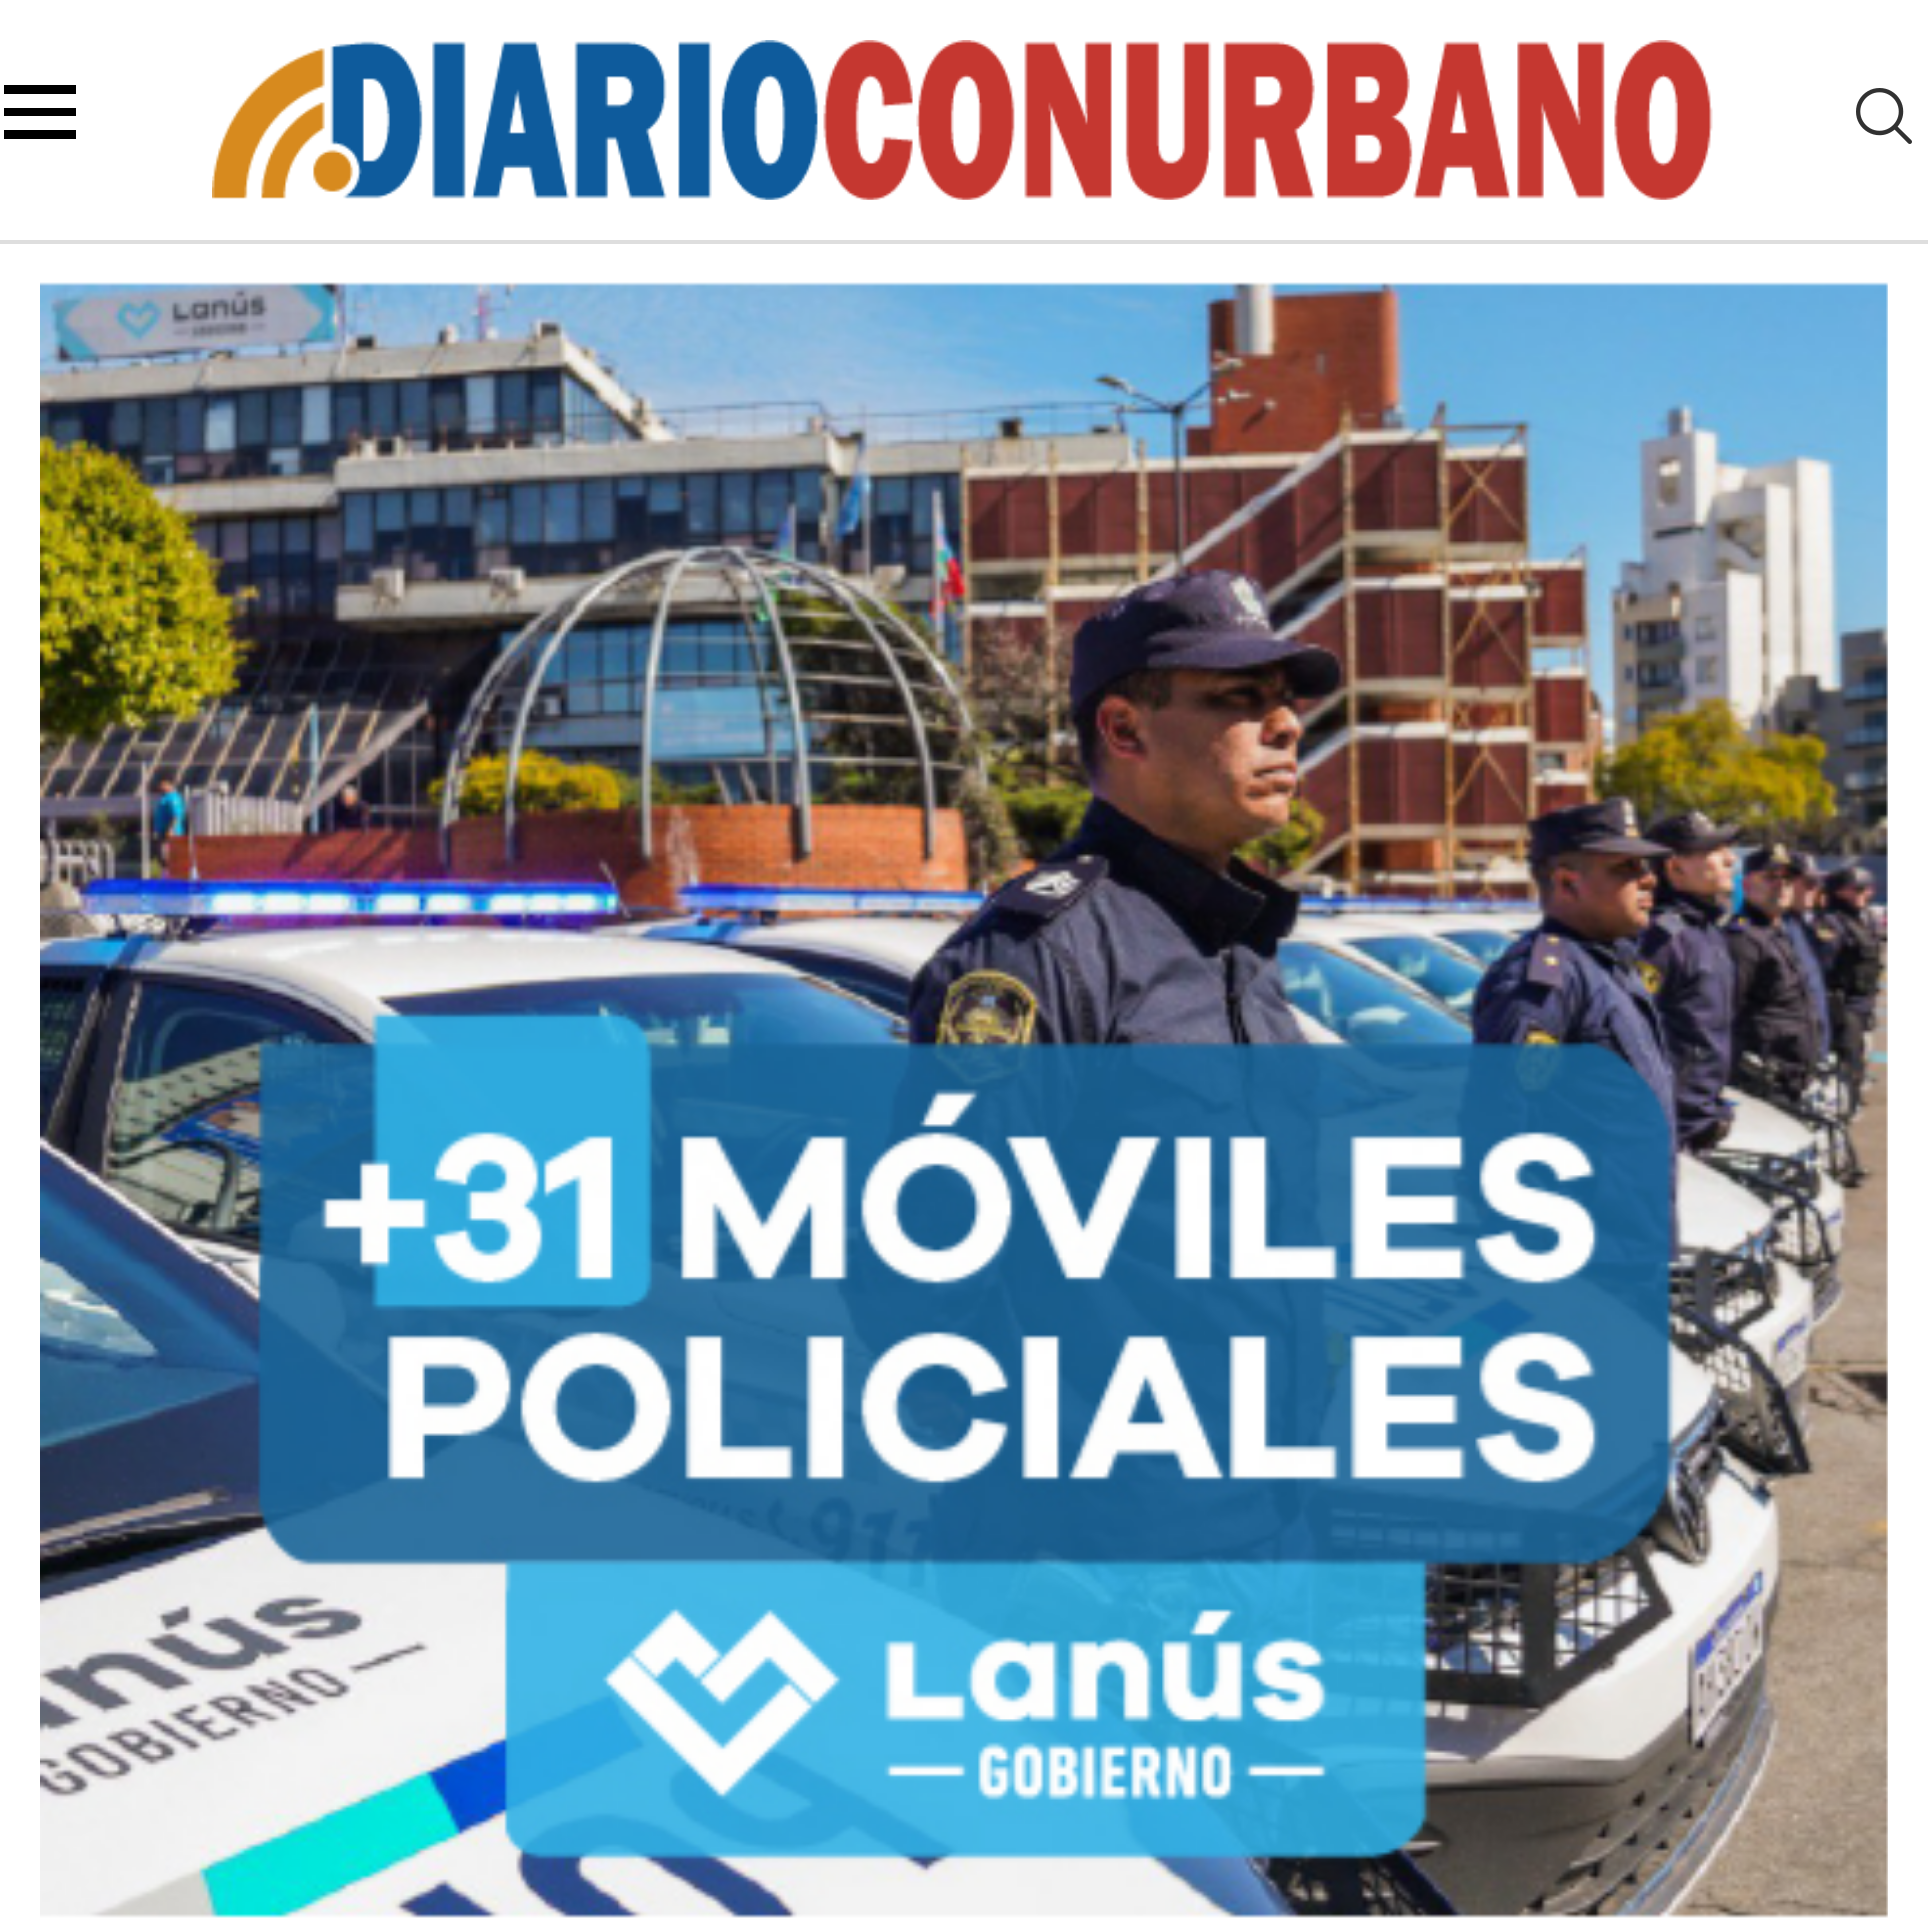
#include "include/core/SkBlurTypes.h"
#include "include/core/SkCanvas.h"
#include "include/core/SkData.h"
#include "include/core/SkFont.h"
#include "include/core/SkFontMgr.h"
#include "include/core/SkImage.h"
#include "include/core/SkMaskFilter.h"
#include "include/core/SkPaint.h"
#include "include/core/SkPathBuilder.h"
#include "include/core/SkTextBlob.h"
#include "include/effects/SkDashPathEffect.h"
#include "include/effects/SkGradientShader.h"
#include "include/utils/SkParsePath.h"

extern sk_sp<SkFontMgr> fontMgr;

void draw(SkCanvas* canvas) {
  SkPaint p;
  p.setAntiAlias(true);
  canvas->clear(SK_ColorWHITE);
  p.setColor(SkColorSetRGB(222, 222, 222));
  canvas->drawRect(SkRect::MakeLTRB(0, 240, 1928, 244), p);
  p.setColor(SK_ColorBLACK);
  canvas->drawRect(SkRect::MakeLTRB(4, 85, 76, 94), p);
  canvas->drawRect(SkRect::MakeLTRB(4, 108, 76, 116), p);
  canvas->drawRect(SkRect::MakeLTRB(4, 130, 76, 139), p);
  canvas->drawImageRect(SkImages::DeferredFromEncodedData(SkData::MakeFromFileName("images/1.png")), SkRect::MakeLTRB(212, 40, 1713, 200), SkSamplingOptions());
  canvas->drawImageRect(SkImages::DeferredFromEncodedData(SkData::MakeFromFileName("images/2.png")), SkRect::MakeLTRB(1856, 88, 1912, 144), SkSamplingOptions());
  canvas->drawImageRect(SkImages::DeferredFromEncodedData(SkData::MakeFromFileName("images/3.png")), SkRect::MakeLTRB(40, 282, 1888, 1918), SkSamplingOptions());
}
